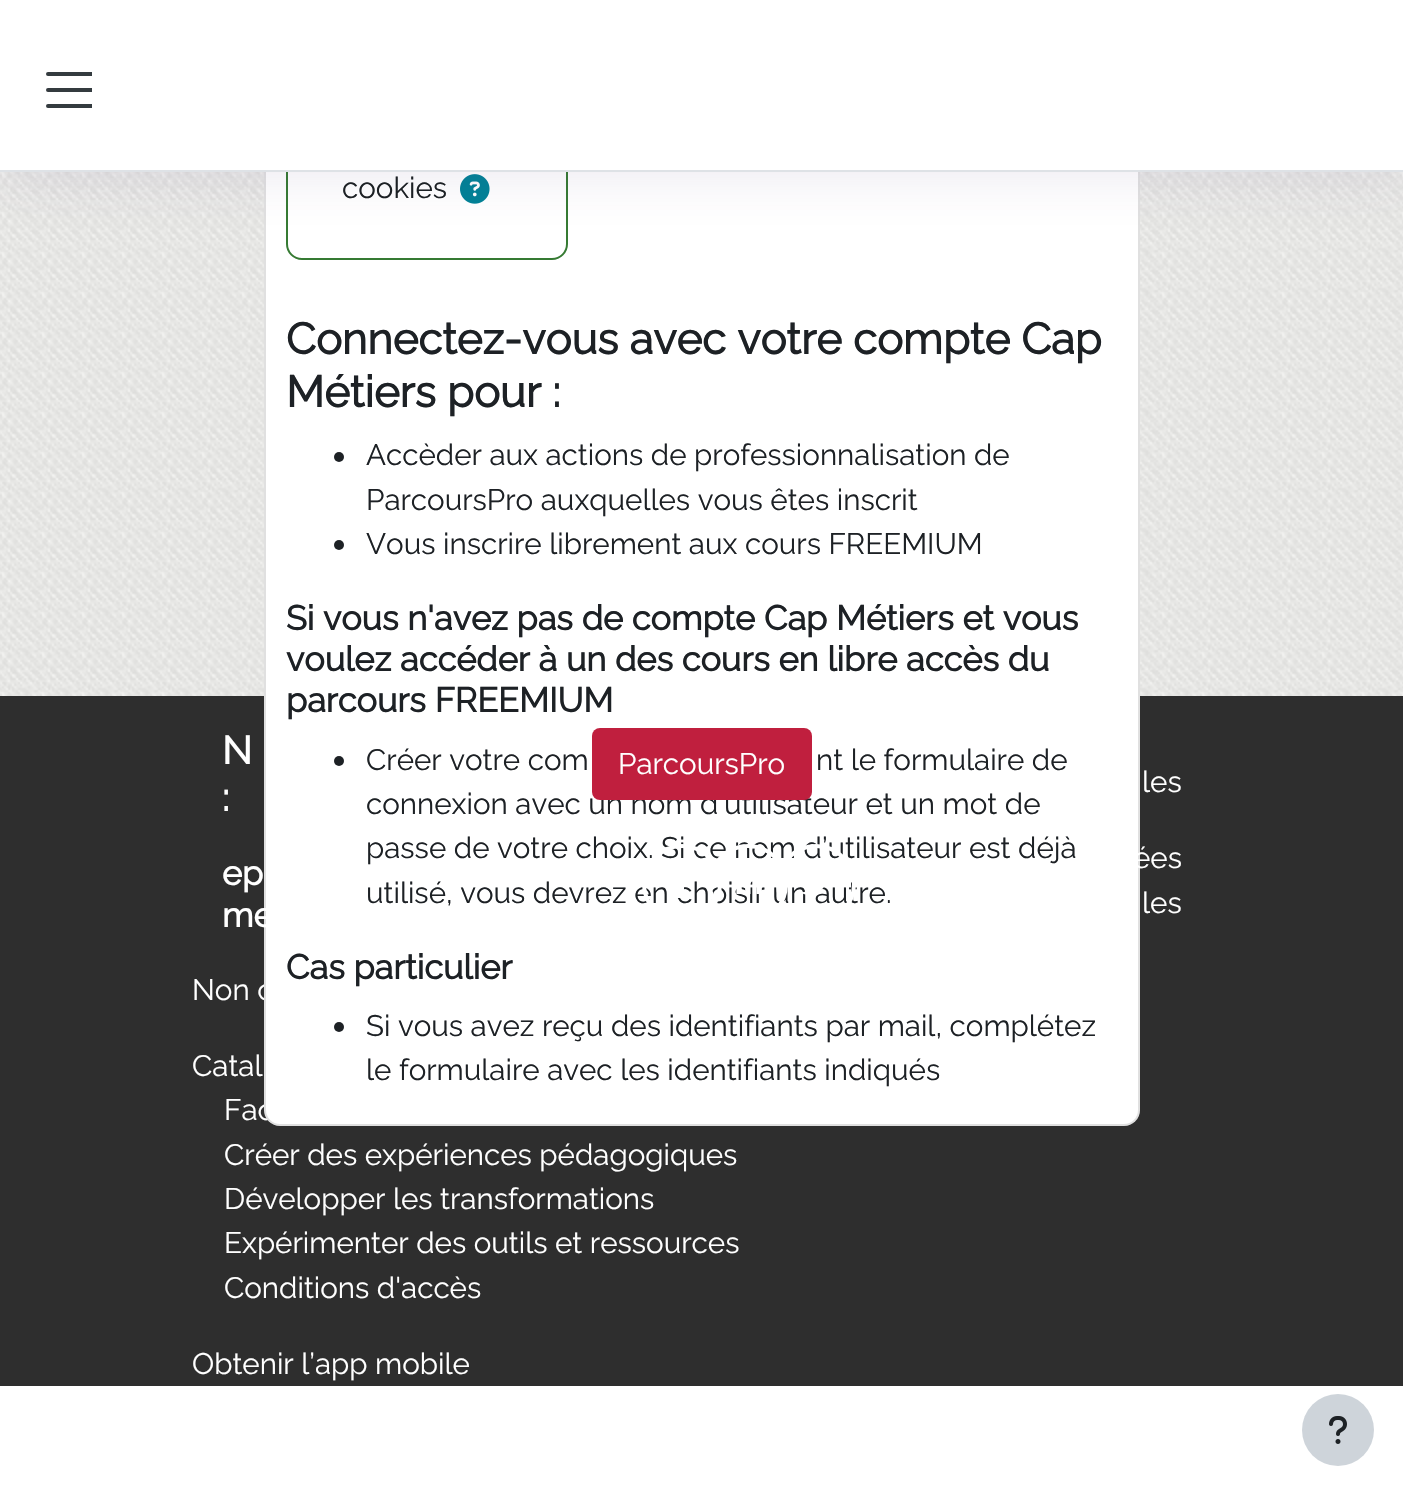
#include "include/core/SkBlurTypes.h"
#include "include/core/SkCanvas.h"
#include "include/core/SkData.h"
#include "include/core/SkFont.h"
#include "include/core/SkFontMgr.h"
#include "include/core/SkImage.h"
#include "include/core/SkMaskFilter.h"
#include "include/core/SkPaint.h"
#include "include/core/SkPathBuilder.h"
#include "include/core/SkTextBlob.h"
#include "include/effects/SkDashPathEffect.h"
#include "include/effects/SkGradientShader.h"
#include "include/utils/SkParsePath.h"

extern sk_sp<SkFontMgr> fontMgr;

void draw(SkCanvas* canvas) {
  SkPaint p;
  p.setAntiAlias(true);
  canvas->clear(SK_ColorWHITE);
  canvas->drawImageRect(SkImages::DeferredFromEncodedData(SkData::MakeFromFileName("images/1.png")), SkRect::MakeLTRB(0, 172, 1403, 696), SkSamplingOptions());
  p.setColor(SkColorSetRGB(46, 46, 46));
  canvas->drawRect(SkRect::MakeLTRB(0, 696, 1403, 1386), p);
  p.setColor(SK_ColorWHITE);
  canvas->drawRoundRect(SkRect::MakeLTRB(264, -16, 1140, 1126), 16, 16, p);
  p.setColor(SkColorSetRGB(206, 212, 218));
  canvas->drawCircle(1338, 1430, 36, p);
  canvas->drawImageRect(SkImages::DeferredFromEncodedData(SkData::MakeFromFileName("images/5.png")), SkRect::MakeLTRB(1329, 1416, 1347, 1444), SkSamplingOptions());
  SkFont font1(fontMgr->matchFamilyStyle("Raleway", SkFontStyle::Bold()), 39);
  font1.setSubpixel(true);
  p.setColor(SK_ColorWHITE);
  canvas->drawString("N", 222, 764, font1, p);
  canvas->drawString(":", 222, 811, font1, p);
  SkFont font2(fontMgr->matchFamilyStyle("Raleway", SkFontStyle::Bold()), 34.25f);
  font2.setSubpixel(true);
  canvas->drawString("ep", 222, 885, font2, p);
  SkFont font3(fontMgr->matchFamilyStyle("Raleway", SkFontStyle(100, SkFontStyle::kNormal_Width, SkFontStyle::kUpright_Slant)), 29.55f);
  font3.setSubpixel(true);
  canvas->drawString("les", 1142, 792, font3, p);
  canvas->drawString("les", 1142, 913, font3, p);
  canvas->drawString("Non c", 192, 1000, font3, p);
  canvas->drawString("Catal", 192, 1076, font3, p);
  canvas->drawString("Fac", 224, 1120, font3, p);
  p.setStyle(SkPaint::kStroke_Style);
  p.setStrokeWidth(2);
  p.setColor(SkColorSetARGB(31, 0, 0, 0));
  canvas->drawRoundRect(SkRect::MakeLTRB(265, -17, 1139, 1125), 15, 15, p);
  p.setColor(SkColorSetRGB(53, 122, 50));
  canvas->drawRoundRect(SkRect::MakeLTRB(287, -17, 567, 259), 15, 15, p);
  canvas->drawImageRect(SkImages::DeferredFromEncodedData(SkData::MakeFromFileName("images/2.png")), SkRect::MakeLTRB(460, 174, 490, 204), SkSamplingOptions());
  p.setStyle(SkPaint::kFill_Style);
  p.setColor(SkColorSetARGB(33, 86, 61, 124));
  p.setMaskFilter(SkMaskFilter::MakeBlur(kNormal_SkBlurStyle, 28));
  canvas->drawRect(SkRect::MakeLTRB(0, 0, 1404, 172), p);
  p.setMaskFilter(nullptr);
  p.setColor(SK_ColorWHITE);
  canvas->drawRect(SkRect::MakeLTRB(0, 0, 1403, 170), p);
  canvas->save();
  canvas->clipRect(SkRect::MakeLTRB(40, 60, 92, 110));
  p.setStyle(SkPaint::kStroke_Style);
  p.setStrokeWidth(4);
  p.setStrokeCap(SkPaint::kRound_Cap);
  p.setColor(SkColorSetRGB(52, 59, 63));
  canvas->drawPath(SkPathBuilder().moveTo(48, 74).lineTo(92, 74).moveTo(48, 90).lineTo(92, 90).moveTo(48, 106).lineTo(92, 106).detach(), p);
  canvas->restore();
  p.setStyle(SkPaint::kFill_Style);
  p.setColor(SkColorSetRGB(222, 226, 230));
  canvas->drawRect(SkRect::MakeLTRB(0, 170, 1403, 172), p);
  p.setColor(SK_ColorWHITE);
  canvas->drawString("ées", 1133, 868, font3, p);
  p.setColor(SkColorSetRGB(29, 33, 37));
  canvas->drawString("utilisé, vous devrez en choisir un autre.", 366, 903, font3, p);
  canvas->drawString("passe de votre choix. Si ce nom d’utilisateur est déjà", 366, 858, font3, p);
  p.setStyle(SkPaint::kStroke_Style);
  p.setStrokeCap(SkPaint::kButt_Cap);
  p.setColor(SK_ColorWHITE);
  canvas->drawCircle(682, 884, 38, p);
  canvas->drawCircle(748, 884, 38, p);
  canvas->drawCircle(816, 884, 38, p);
  canvas->drawImageRect(SkImages::DeferredFromEncodedData(SkData::MakeFromFileName("images/4.png")), SkRect::MakeLTRB(802, 887, 824, 895), SkSamplingOptions());
  canvas->drawImageRect(SkImages::DeferredFromEncodedData(SkData::MakeFromFileName("images/3.png")), SkRect::MakeLTRB(736, 881, 762, 894), SkSamplingOptions());
  p.setStyle(SkPaint::kFill_Style);
  canvas->drawRect(SkRect::MakeLTRB(677, 887, 684, 898), p);
  p.setColor(SkColorSetRGB(29, 33, 37));
  canvas->drawString("connexion avec un nom d’utilisateur et un mot de", 366, 814, font3, p);
  p.setColor(SkColorSetRGB(192, 31, 62));
  canvas->drawRoundRect(SkRect::MakeLTRB(592, 728, 812, 800), 8, 8, p);
  p.setColor(SK_ColorWHITE);
  canvas->drawString("ParcoursPro", 618, 774, font3, p);
  canvas->drawString("me", 222, 927, font2, p);
  p.setColor(SkColorSetRGB(29, 33, 37));
  canvas->drawString("cookies", 342, 198, font3, p);
  canvas->drawString("le formulaire avec les identifiants indiqués", 366, 1080, font3, p);
  canvas->drawString("Si vous avez reçu des identifiants par mail, complétez", 366, 1036, font3, p);
  canvas->drawCircle(339, 1027, 5, p);
  canvas->drawString("Cas particulier", 286, 979, font2, p);
  canvas->drawString("nt le formulaire de", 816, 770, font3, p);
  canvas->drawString("Créer votre com", 366, 770, font3, p);
  canvas->drawCircle(339, 761, 5, p);
  canvas->drawString("parcours FREEMIUM", 286, 712, font2, p);
  canvas->drawString("voulez accéder à un des cours en libre accès du", 286, 671, font2, p);
  canvas->drawString("Si vous n'avez pas de compte Cap Métiers et vous", 286, 630, font2, p);
  canvas->drawString("Vous inscrire librement aux cours FREEMIUM", 366, 554, font3, p);
  canvas->drawCircle(339, 545, 5, p);
  canvas->drawString("ParcoursPro auxquelles vous êtes inscrit", 366, 510, font3, p);
  canvas->drawString("Accèder aux actions de professionnalisation de", 366, 465, font3, p);
  canvas->drawCircle(339, 457, 5, p);
  SkFont font4(fontMgr->matchFamilyStyle("Raleway", SkFontStyle::Bold()), 43.6f);
  font4.setSubpixel(true);
  canvas->drawString("Métiers pour :", 286, 407, font4, p);
  canvas->drawString("Connectez-vous avec votre compte Cap", 286, 354, font4, p);
  p.setColor(SK_ColorWHITE);
  canvas->drawString("Créer des expériences pédagogiques", 224, 1165, font3, p);
  canvas->drawString("Développer les transformations", 224, 1209, font3, p);
  canvas->drawString("Expérimenter des outils et ressources", 224, 1253, font3, p);
  canvas->drawString("Conditions d'accès", 224, 1298, font3, p);
  canvas->drawString("Obtenir l’app mobile", 192, 1374, font3, p);
}
